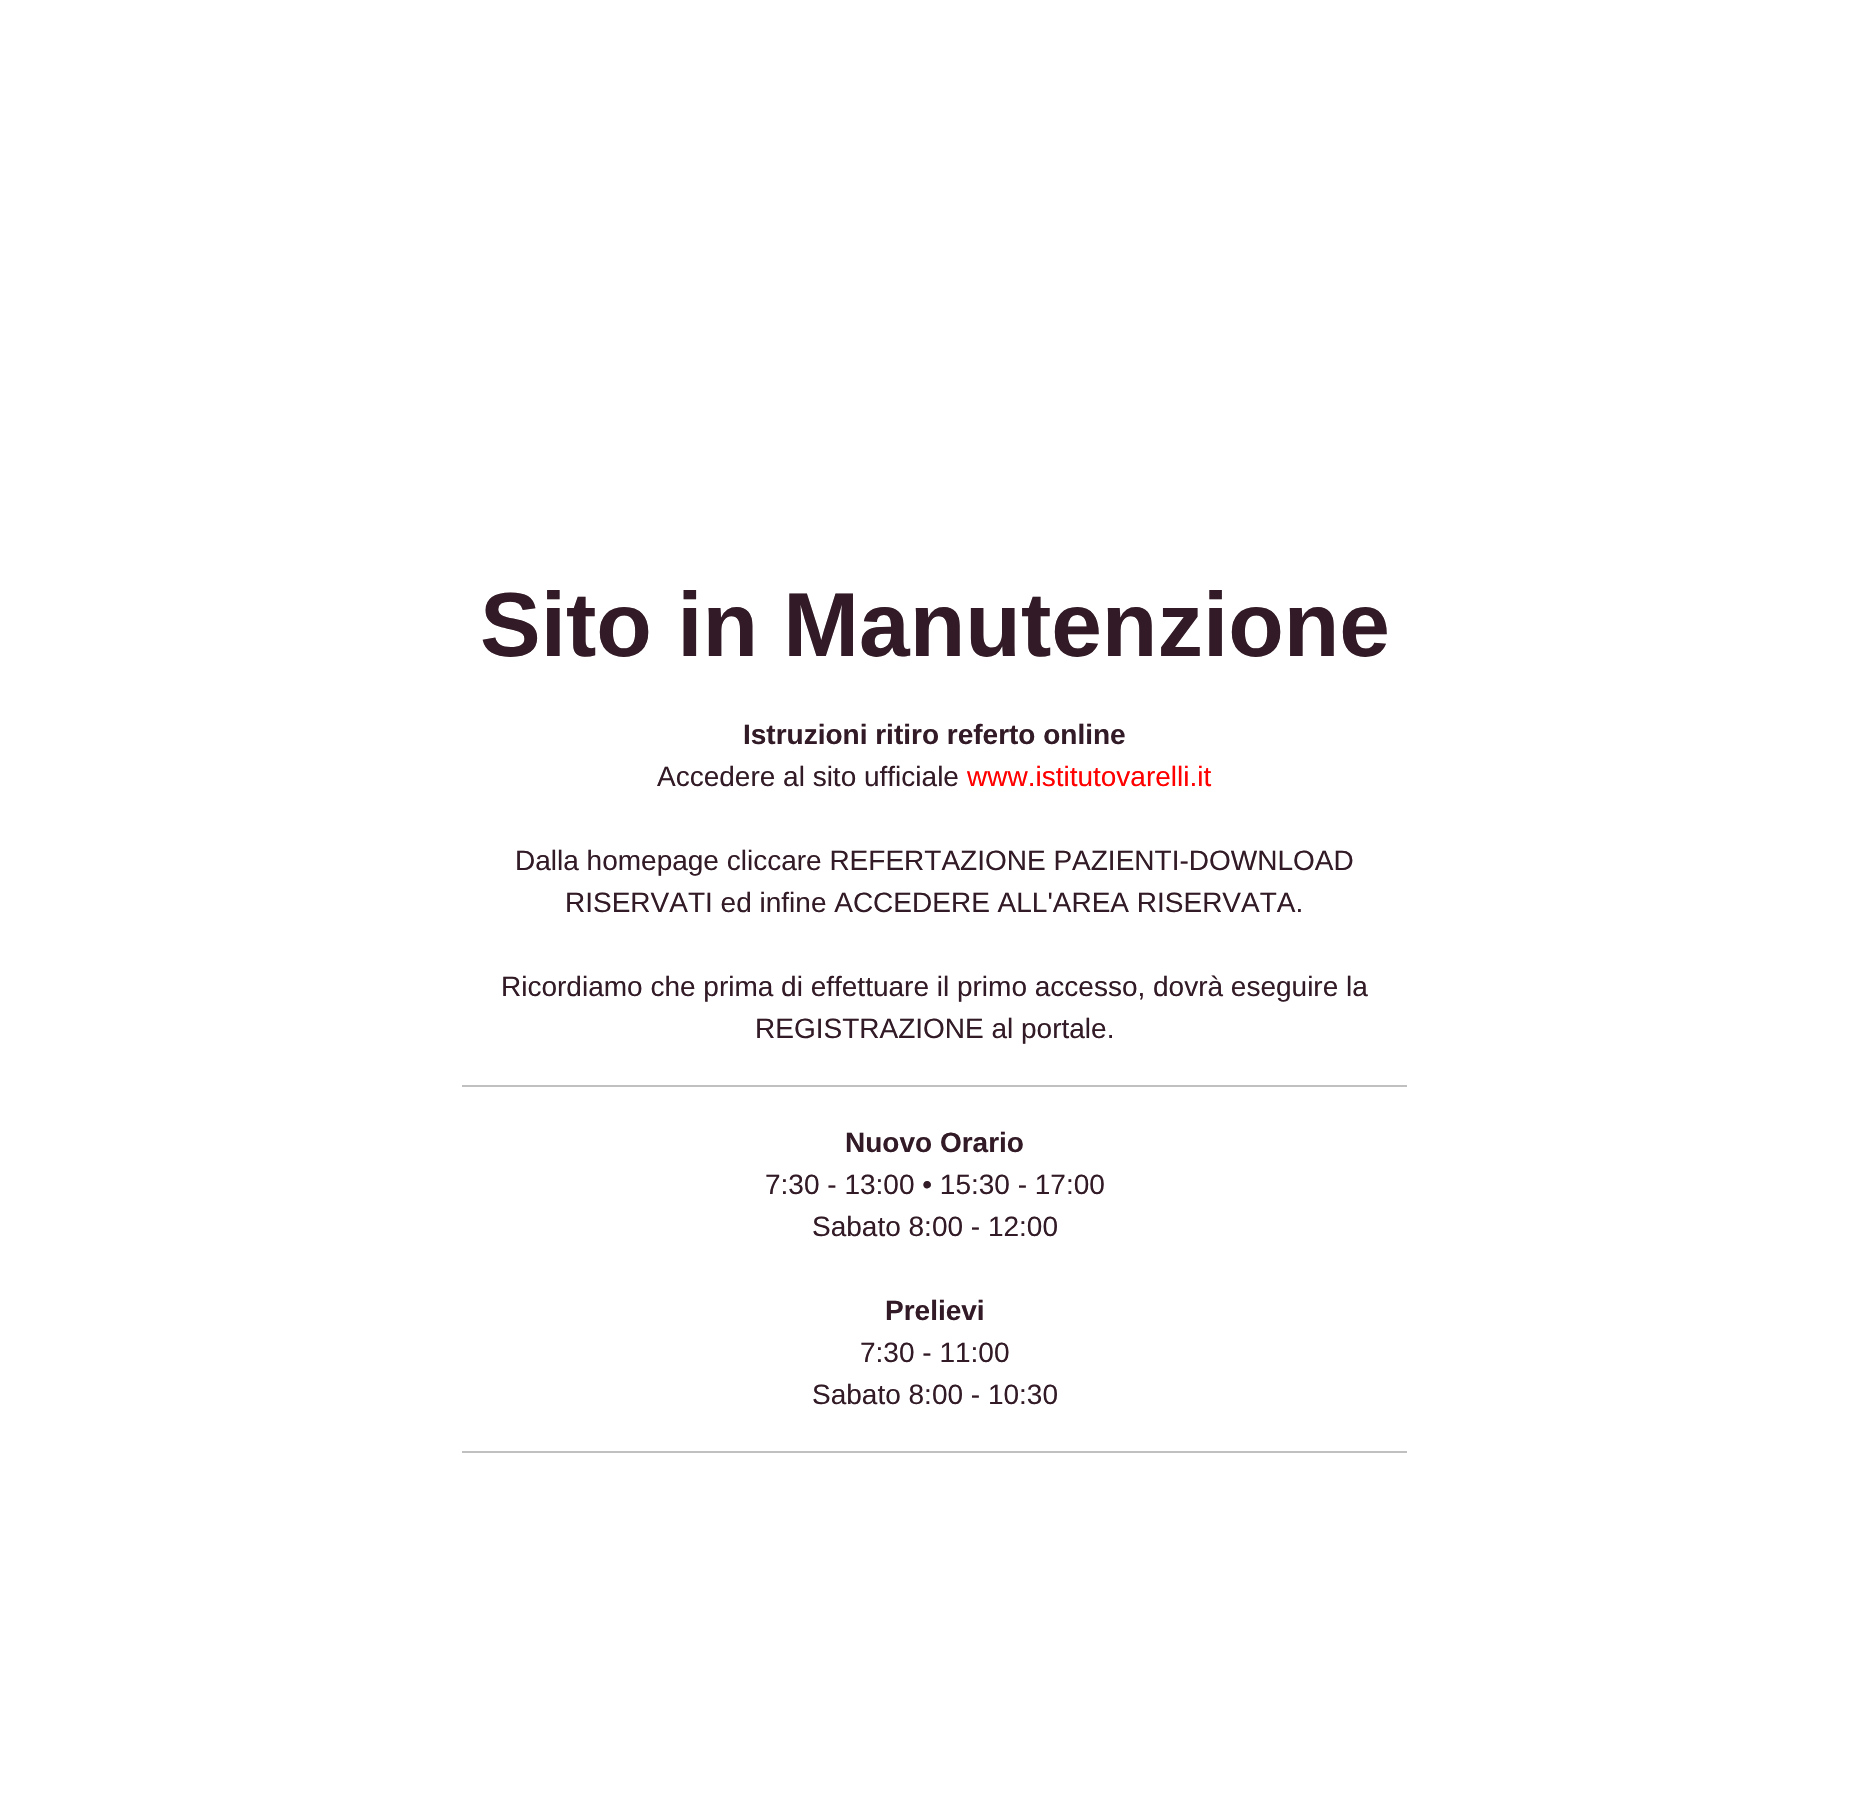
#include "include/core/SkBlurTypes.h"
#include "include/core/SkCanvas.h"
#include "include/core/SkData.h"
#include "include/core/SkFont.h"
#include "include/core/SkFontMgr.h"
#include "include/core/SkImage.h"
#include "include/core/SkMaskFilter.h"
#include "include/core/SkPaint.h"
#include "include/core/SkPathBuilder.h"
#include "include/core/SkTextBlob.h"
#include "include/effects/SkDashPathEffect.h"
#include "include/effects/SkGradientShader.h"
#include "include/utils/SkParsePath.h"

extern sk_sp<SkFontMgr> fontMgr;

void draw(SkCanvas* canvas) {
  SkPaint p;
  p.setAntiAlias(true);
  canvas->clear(SK_ColorWHITE);
  p.setColor(SkColorSetRGB(192, 192, 192));
  canvas->drawRect(SkRect::MakeLTRB(462, 1085, 1407, 1087), p);
  canvas->drawRect(SkRect::MakeLTRB(462, 1451, 1407, 1453), p);
  SkFont font1(fontMgr->matchFamilyStyle("Liberation Sans", SkFontStyle::Bold()), 91);
  font1.setSubpixel(true);
  p.setColor(SkColorSetRGB(50, 27, 38));
  canvas->drawString("Sito in Manutenzione", 480, 656, font1, p);
  SkFont font2(fontMgr->matchFamilyStyle("Liberation Sans", SkFontStyle::Bold()), 28);
  font2.setSubpixel(true);
  canvas->drawString("Istruzioni ritiro referto online", 743, 744, font2, p);
  SkFont font3(fontMgr->matchFamilyStyle("Liberation Sans", SkFontStyle::Normal()), 28);
  font3.setSubpixel(true);
  canvas->drawString("Accedere al sito ufficiale", 657, 786, font3, p);
  p.setColor(SkColorSetRGB(255, 0, 0));
  canvas->drawString("www.istitutovarelli.it", 967, 786, font3, p);
  p.setColor(SkColorSetRGB(50, 27, 38));
  canvas->drawString("Dalla homepage cliccare REFERTAZIONE PAZIENTI-DOWNLOAD", 515, 870, font3, p);
  canvas->drawString("RISERVATI ed infine ACCEDERE ALL'AREA RISERVATA.", 565, 912, font3, p);
  canvas->drawString("Ricordiamo che prima di effettuare il primo accesso, dovrà eseguire la", 501, 996, font3, p);
  canvas->drawString("REGISTRAZIONE al portale.", 755, 1038, font3, p);
  canvas->drawString("Nuovo Orario", 845, 1152, font2, p);
  canvas->drawString("7:30 - 13:00 • 15:30 - 17:00", 765, 1194, font3, p);
  canvas->drawString("Sabato 8:00 - 12:00", 812, 1236, font3, p);
  canvas->drawString("Prelievi", 885, 1320, font2, p);
  canvas->drawString("7:30 - 11:00", 860, 1362, font3, p);
  canvas->drawString("Sabato 8:00 - 10:30", 812, 1404, font3, p);
}
